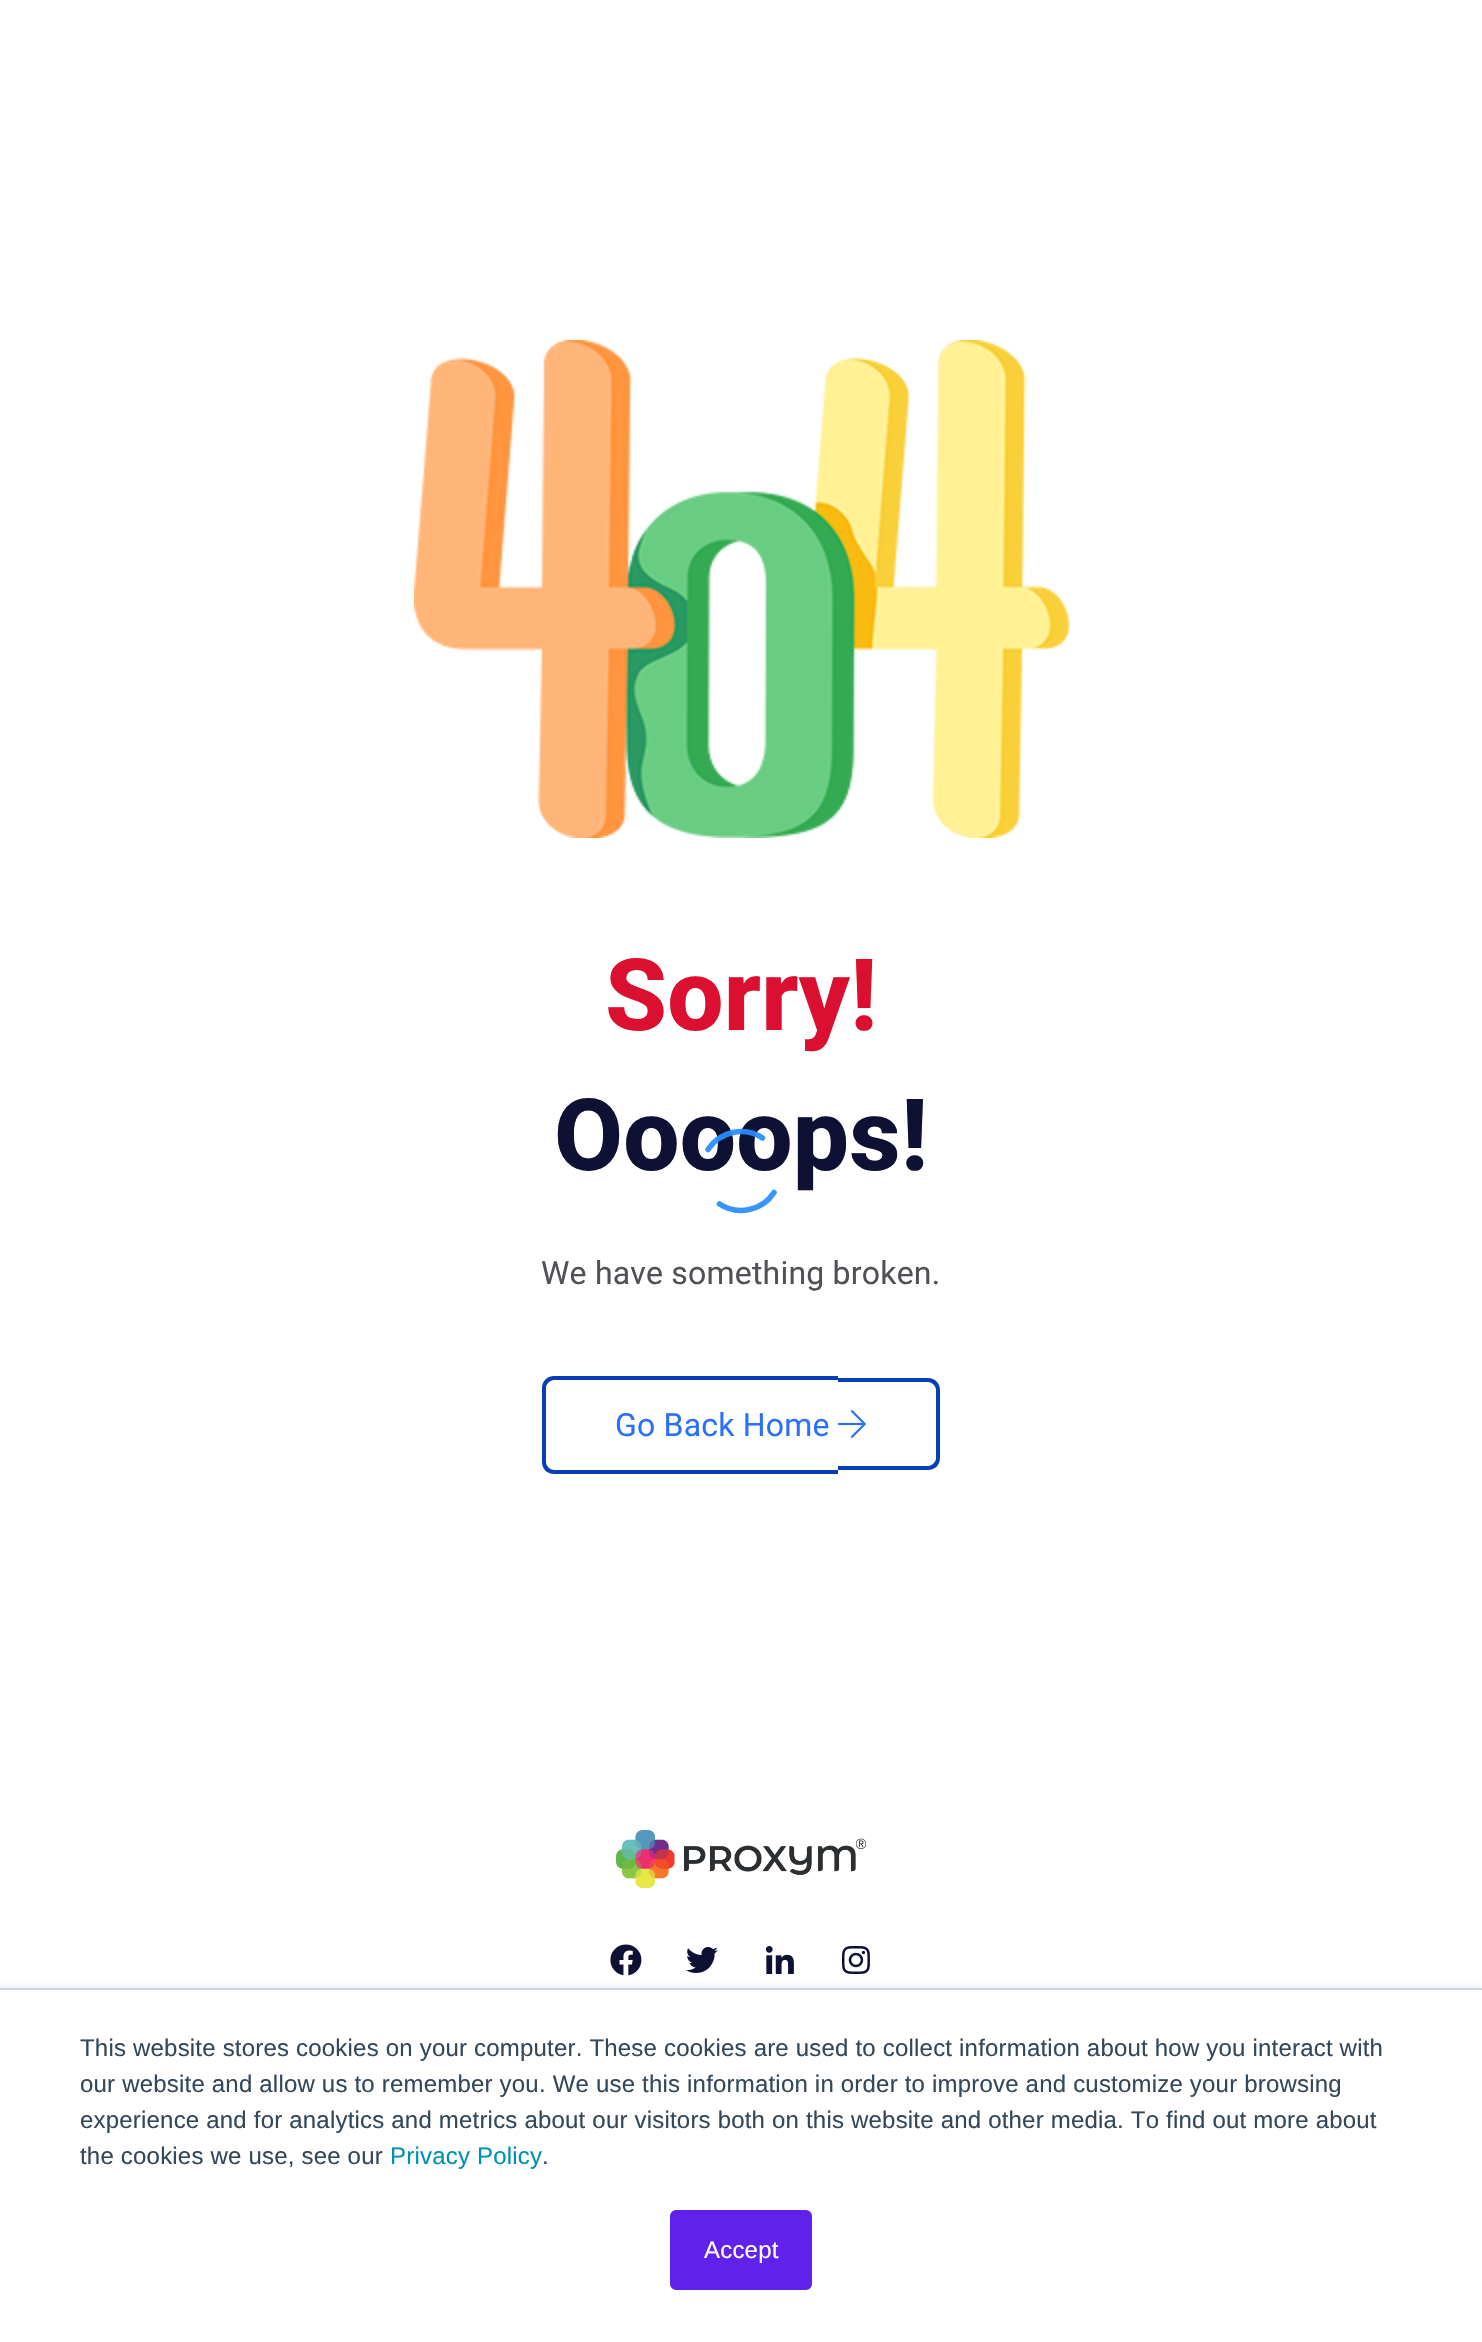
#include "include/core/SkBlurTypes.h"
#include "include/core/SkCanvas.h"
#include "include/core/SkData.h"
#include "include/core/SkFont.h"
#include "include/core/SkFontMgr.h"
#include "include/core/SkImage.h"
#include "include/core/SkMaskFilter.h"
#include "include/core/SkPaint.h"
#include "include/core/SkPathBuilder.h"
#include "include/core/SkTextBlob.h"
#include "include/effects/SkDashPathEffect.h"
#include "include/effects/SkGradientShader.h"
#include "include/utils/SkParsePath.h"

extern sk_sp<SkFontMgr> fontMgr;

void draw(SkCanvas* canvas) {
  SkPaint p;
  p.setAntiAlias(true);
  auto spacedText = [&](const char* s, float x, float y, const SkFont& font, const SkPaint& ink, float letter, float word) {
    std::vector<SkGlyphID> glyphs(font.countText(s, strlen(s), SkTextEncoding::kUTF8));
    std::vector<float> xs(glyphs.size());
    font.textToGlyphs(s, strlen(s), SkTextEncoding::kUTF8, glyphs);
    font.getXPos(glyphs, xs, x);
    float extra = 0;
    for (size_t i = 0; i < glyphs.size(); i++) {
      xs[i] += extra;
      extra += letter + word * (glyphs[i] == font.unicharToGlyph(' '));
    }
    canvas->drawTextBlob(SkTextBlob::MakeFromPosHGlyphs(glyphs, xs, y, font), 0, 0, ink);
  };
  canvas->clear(SK_ColorWHITE);
  canvas->drawImageRect(SkImages::DeferredFromEncodedData(SkData::MakeFromFileName("images/1.png")), SkRect::MakeLTRB(414, 340, 1070, 838), SkSamplingOptions());
  p.setColor(SkColorSetRGB(6, 63, 179));
  canvas->drawPath(SkPathBuilder(SkPathFillType::kEvenOdd).moveTo(554, 1376).lineTo(838, 1376).lineTo(838, 1474).lineTo(554, 1474).cubicTo(547, 1474, 542, 1469, 542, 1462).lineTo(542, 1388).cubicTo(542, 1381, 547, 1376, 554, 1376).close().moveTo(554, 1380).lineTo(838, 1380).lineTo(838, 1470).lineTo(554, 1470).cubicTo(550, 1470, 546, 1466, 546, 1462).lineTo(546, 1388).cubicTo(546, 1384, 550, 1380, 554, 1380).close().detach(), p);
  canvas->drawPath(SkPathBuilder(SkPathFillType::kEvenOdd).moveTo(838, 1378).lineTo(928, 1378).cubicTo(935, 1378, 940, 1383, 940, 1390).lineTo(940, 1458).cubicTo(940, 1465, 935, 1470, 928, 1470).lineTo(838, 1470).close().moveTo(838, 1382).lineTo(928, 1382).cubicTo(932, 1382, 936, 1386, 936, 1390).lineTo(936, 1458).cubicTo(936, 1462, 932, 1466, 928, 1466).lineTo(838, 1466).close().detach(), p);
  canvas->drawImageRect(SkImages::DeferredFromEncodedData(SkData::MakeFromFileName("images/2.png")), SkRect::MakeLTRB(838, 1410, 866, 1438), SkSamplingOptions());
  canvas->drawImageRect(SkImages::DeferredFromEncodedData(SkData::MakeFromFileName("images/3.png")), SkRect::MakeLTRB(616, 1830, 866, 1888), SkSamplingOptions());
  canvas->drawImageRect(SkImages::DeferredFromEncodedData(SkData::MakeFromFileName("images/4.png")), SkRect::MakeLTRB(610, 1944, 642, 1976), SkSamplingOptions());
  canvas->drawImageRect(SkImages::DeferredFromEncodedData(SkData::MakeFromFileName("images/5.png")), SkRect::MakeLTRB(686, 1947, 718, 1973), SkSamplingOptions());
  canvas->drawImageRect(SkImages::DeferredFromEncodedData(SkData::MakeFromFileName("images/6.png")), SkRect::MakeLTRB(765, 1946, 794, 1974), SkSamplingOptions());
  canvas->drawImageRect(SkImages::DeferredFromEncodedData(SkData::MakeFromFileName("images/7.png")), SkRect::MakeLTRB(841, 1946, 870, 1974), SkSamplingOptions());
  p.setColor(SkColorSetRGB(234, 240, 246));
  p.setMaskFilter(SkMaskFilter::MakeBlur(kNormal_SkBlurStyle, 3));
  canvas->drawRect(SkRect::MakeLTRB(0, 1986, 1482, 2340), p);
  p.setMaskFilter(nullptr);
  p.setColor(SK_ColorWHITE);
  canvas->drawRect(SkRect::MakeLTRB(0, 1990, 1482, 2342), p);
  p.setColor(SkColorSetRGB(203, 214, 226));
  canvas->drawRect(SkRect::MakeLTRB(0, 1988, 1482, 1990), p);
  p.setColor(SkColorSetRGB(96, 34, 234));
  canvas->drawRoundRect(SkRect::MakeLTRB(671, 2211, 811, 2289), 5, 5, p);
  p.setStyle(SkPaint::kStroke_Style);
  p.setStrokeWidth(2);
  canvas->drawRoundRect(SkRect::MakeLTRB(671, 2211, 811, 2289), 5, 5, p);
  SkFont font1(fontMgr->matchFamilyStyle("Roboto", SkFontStyle(800, SkFontStyle::kNormal_Width, SkFontStyle::kUpright_Slant)), 100);
  font1.setSubpixel(true);
  p.setStyle(SkPaint::kFill_Style);
  p.setColor(SkColorSetRGB(219, 15, 48));
  spacedText("Sorry!", 605, 1030, font1, p, 0.2f, 0);
  p.setColor(SkColorSetRGB(14, 17, 51));
  spacedText("Oooops!", 554, 1170, font1, p, 0.2f, 0);
  SkFont font2(fontMgr->matchFamilyStyle("Roboto", SkFontStyle::Normal()), 32);
  font2.setSubpixel(true);
  p.setColor(SkColorSetRGB(80, 80, 86));
  spacedText("We have something broken.", 541, 1284, font2, p, 0.2f, 0);
  p.setColor(SkColorSetRGB(43, 112, 250));
  spacedText("Go Back Home", 615, 1436, font2, p, 0.2f, 0);
  p.setStyle(SkPaint::kStroke_Style);
  p.setStrokeWidth(5.6f);
  p.setStrokeCap(SkPaint::kRound_Cap);
  p.setColor(SkColorSetARGB(237, 41, 141, 255));
  canvas->drawPath(SkPathBuilder().moveTo(708, 1149.5f).cubicTo(719.5f, 1131.5f, 744.5f, 1126, 762.5f, 1138).moveTo(774, 1192.5f).cubicTo(762.5f, 1210.5f, 737.5f, 1216, 719.5f, 1204).detach(), p);
  SkFont font3(fontMgr->matchFamilyStyle("Liberation Sans", SkFontStyle::Normal()), 24);
  font3.setSubpixel(true);
  p.setStyle(SkPaint::kFill_Style);
  p.setColor(SkColorSetRGB(51, 71, 91));
  spacedText("This website stores cookies on your computer. These cookies are used to collect information about how you interact with", 80, 2056, font3, p, 0.2f, 0);
  spacedText("our website and allow us to remember you. We use this information in order to improve and customize your browsing", 80, 2092, font3, p, 0.2f, 0);
  spacedText("experience and for analytics and metrics about our visitors both on this website and other media. To find out more about", 80, 2128, font3, p, 0.2f, 0);
  spacedText("the cookies we use, see our", 80, 2164, font3, p, 0.2f, 0);
  p.setColor(SkColorSetRGB(0, 145, 174));
  spacedText("Privacy Policy", 390, 2164, font3, p, 0.2f, 0);
  p.setColor(SkColorSetRGB(51, 71, 91));
  spacedText(".", 542, 2164, font3, p, 0.2f, 0);
  p.setColor(SK_ColorWHITE);
  spacedText("Accept", 704, 2258, font3, p, 0.2f, 0);
}
